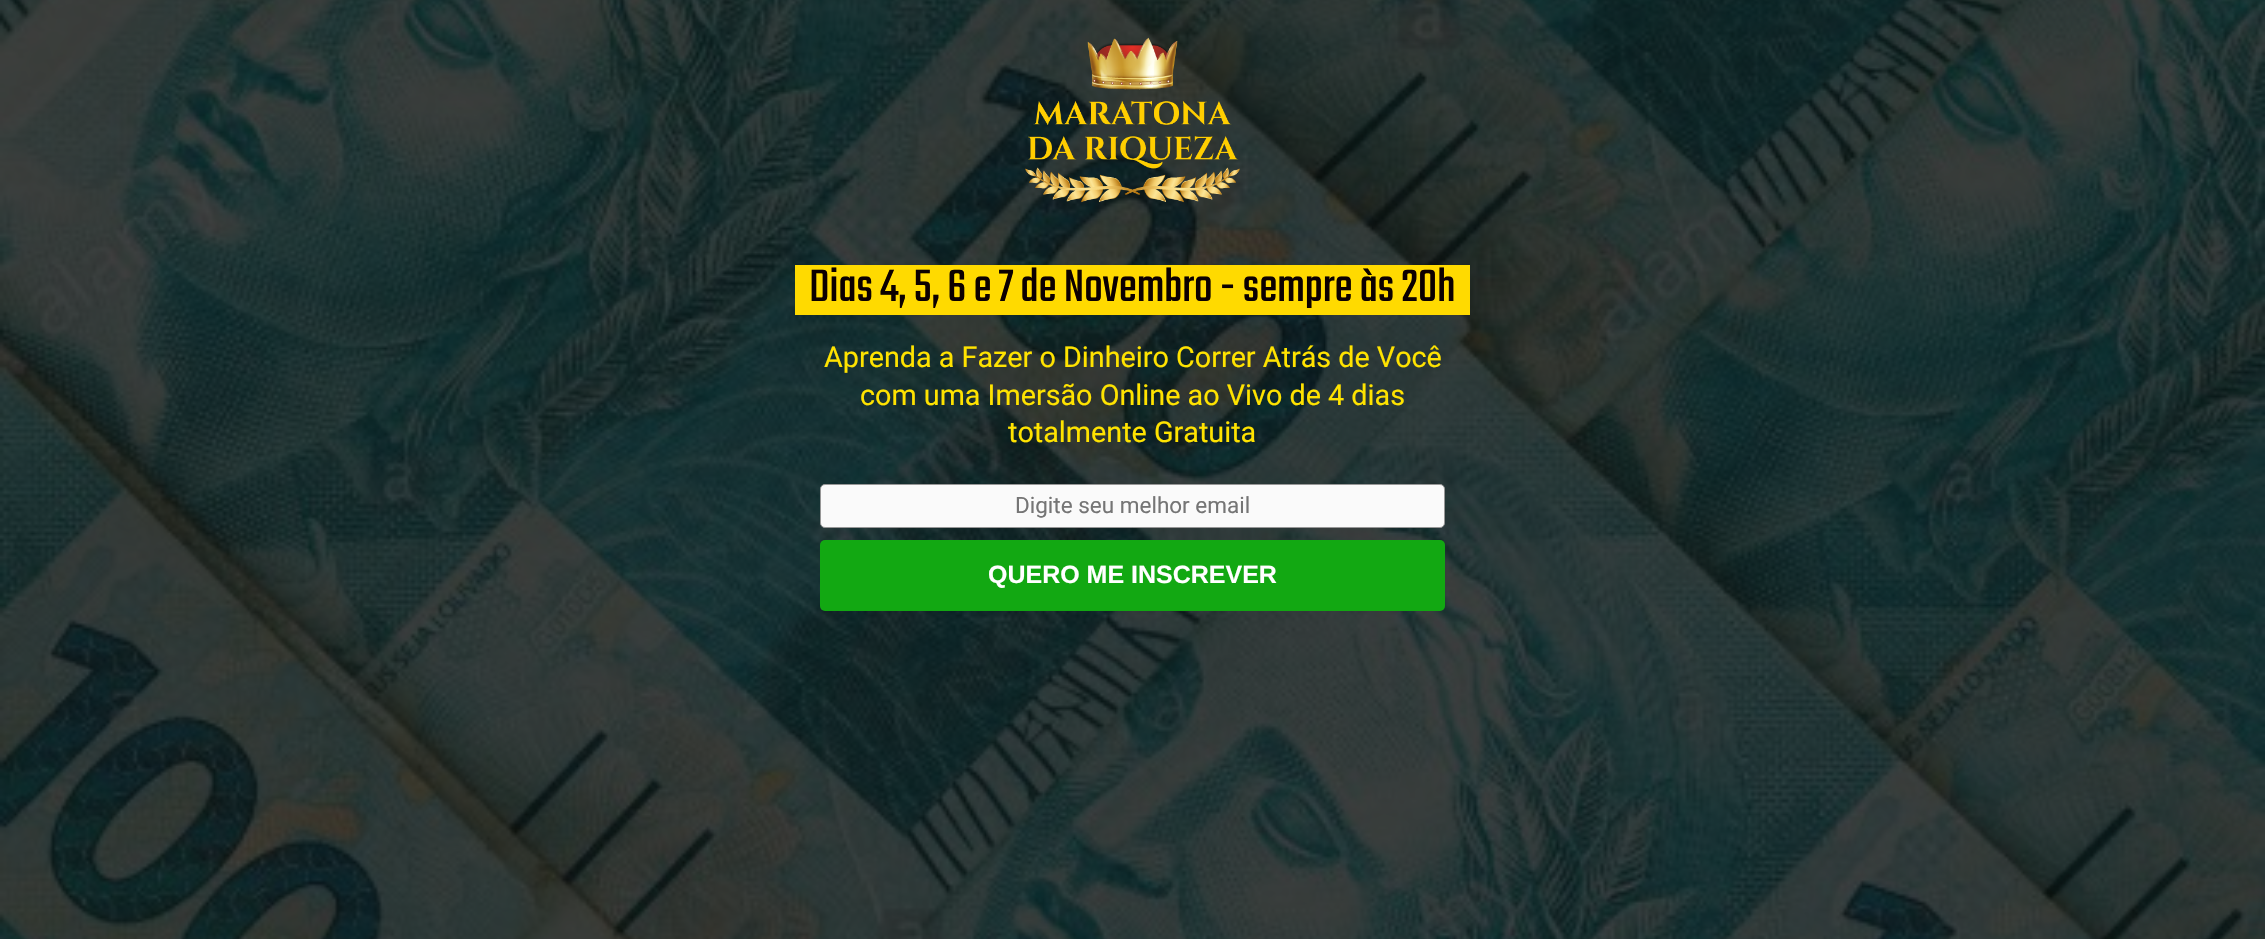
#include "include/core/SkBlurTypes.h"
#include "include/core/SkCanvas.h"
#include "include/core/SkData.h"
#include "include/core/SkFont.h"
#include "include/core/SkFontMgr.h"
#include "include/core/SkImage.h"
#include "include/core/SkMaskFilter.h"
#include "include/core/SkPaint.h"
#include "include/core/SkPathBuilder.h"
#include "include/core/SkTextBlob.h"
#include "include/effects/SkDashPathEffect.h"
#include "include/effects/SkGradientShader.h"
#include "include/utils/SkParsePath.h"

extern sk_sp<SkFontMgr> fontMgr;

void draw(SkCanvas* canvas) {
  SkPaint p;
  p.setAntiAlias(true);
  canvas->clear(SK_ColorWHITE);
  canvas->drawImageRect(SkImages::DeferredFromEncodedData(SkData::MakeFromFileName("images/1.png")), SkRect::MakeLTRB(0, 0, 2265, 939), SkSamplingOptions());
  canvas->drawImageRect(SkImages::DeferredFromEncodedData(SkData::MakeFromFileName("images/2.png")), SkRect::MakeLTRB(1025, 37, 1240, 203), SkSamplingOptions());
  p.setColor(SkColorSetRGB(255, 218, 0));
  canvas->drawRect(SkRect::MakeLTRB(795, 265, 1470, 315), p);
  p.setColor(SkColorSetRGB(250, 250, 250));
  canvas->drawRoundRect(SkRect::MakeLTRB(820.5f, 484.5f, 1444.5f, 527.5f), 4.5f, 4.5f, p);
  p.setStyle(SkPaint::kStroke_Style);
  p.setStrokeWidth(1);
  p.setColor(SkColorSetRGB(151, 151, 151));
  canvas->drawRoundRect(SkRect::MakeLTRB(820.5f, 484.5f, 1444.5f, 527.5f), 4.5f, 4.5f, p);
  p.setStyle(SkPaint::kFill_Style);
  p.setColor(SkColorSetRGB(18, 168, 18));
  canvas->drawRoundRect(SkRect::MakeLTRB(820, 540, 1445, 611), 5, 5, p);
  SkFont font1(fontMgr->matchFamilyStyle("Teko", SkFontStyle::Normal()), 50);
  font1.setSubpixel(true);
  p.setColor(SkColorSetRGB(12, 0, 0));
  canvas->drawString("Dias 4, 5, 6 e 7 de Novembro - sempre às 20h", 809, 301, font1, p);
  SkFont font2(fontMgr->matchFamilyStyle("Roboto", SkFontStyle::Normal()), 28.75f);
  font2.setSubpixel(true);
  p.setColor(SkColorSetRGB(255, 227, 0));
  canvas->drawString("Aprenda a Fazer o Dinheiro Correr Atrás de Você", 824, 367, font2, p);
  canvas->drawString("com uma Imersão Online ao Vivo de 4 dias", 860, 405, font2, p);
  canvas->drawString("totalmente Gratuita", 1008, 442, font2, p);
  SkFont font3(fontMgr->matchFamilyStyle("Roboto", SkFontStyle::Normal()), 22.5f);
  font3.setSubpixel(true);
  p.setColor(SkColorSetRGB(117, 117, 117));
  canvas->drawString("Digite seu melhor email", 1015, 513, font3, p);
  SkFont font4(fontMgr->matchFamilyStyle("Liberation Sans", SkFontStyle::Bold()), 25);
  font4.setSubpixel(true);
  p.setColor(SK_ColorWHITE);
  canvas->drawString("QUERO ME INSCREVER", 988, 583, font4, p);
}
